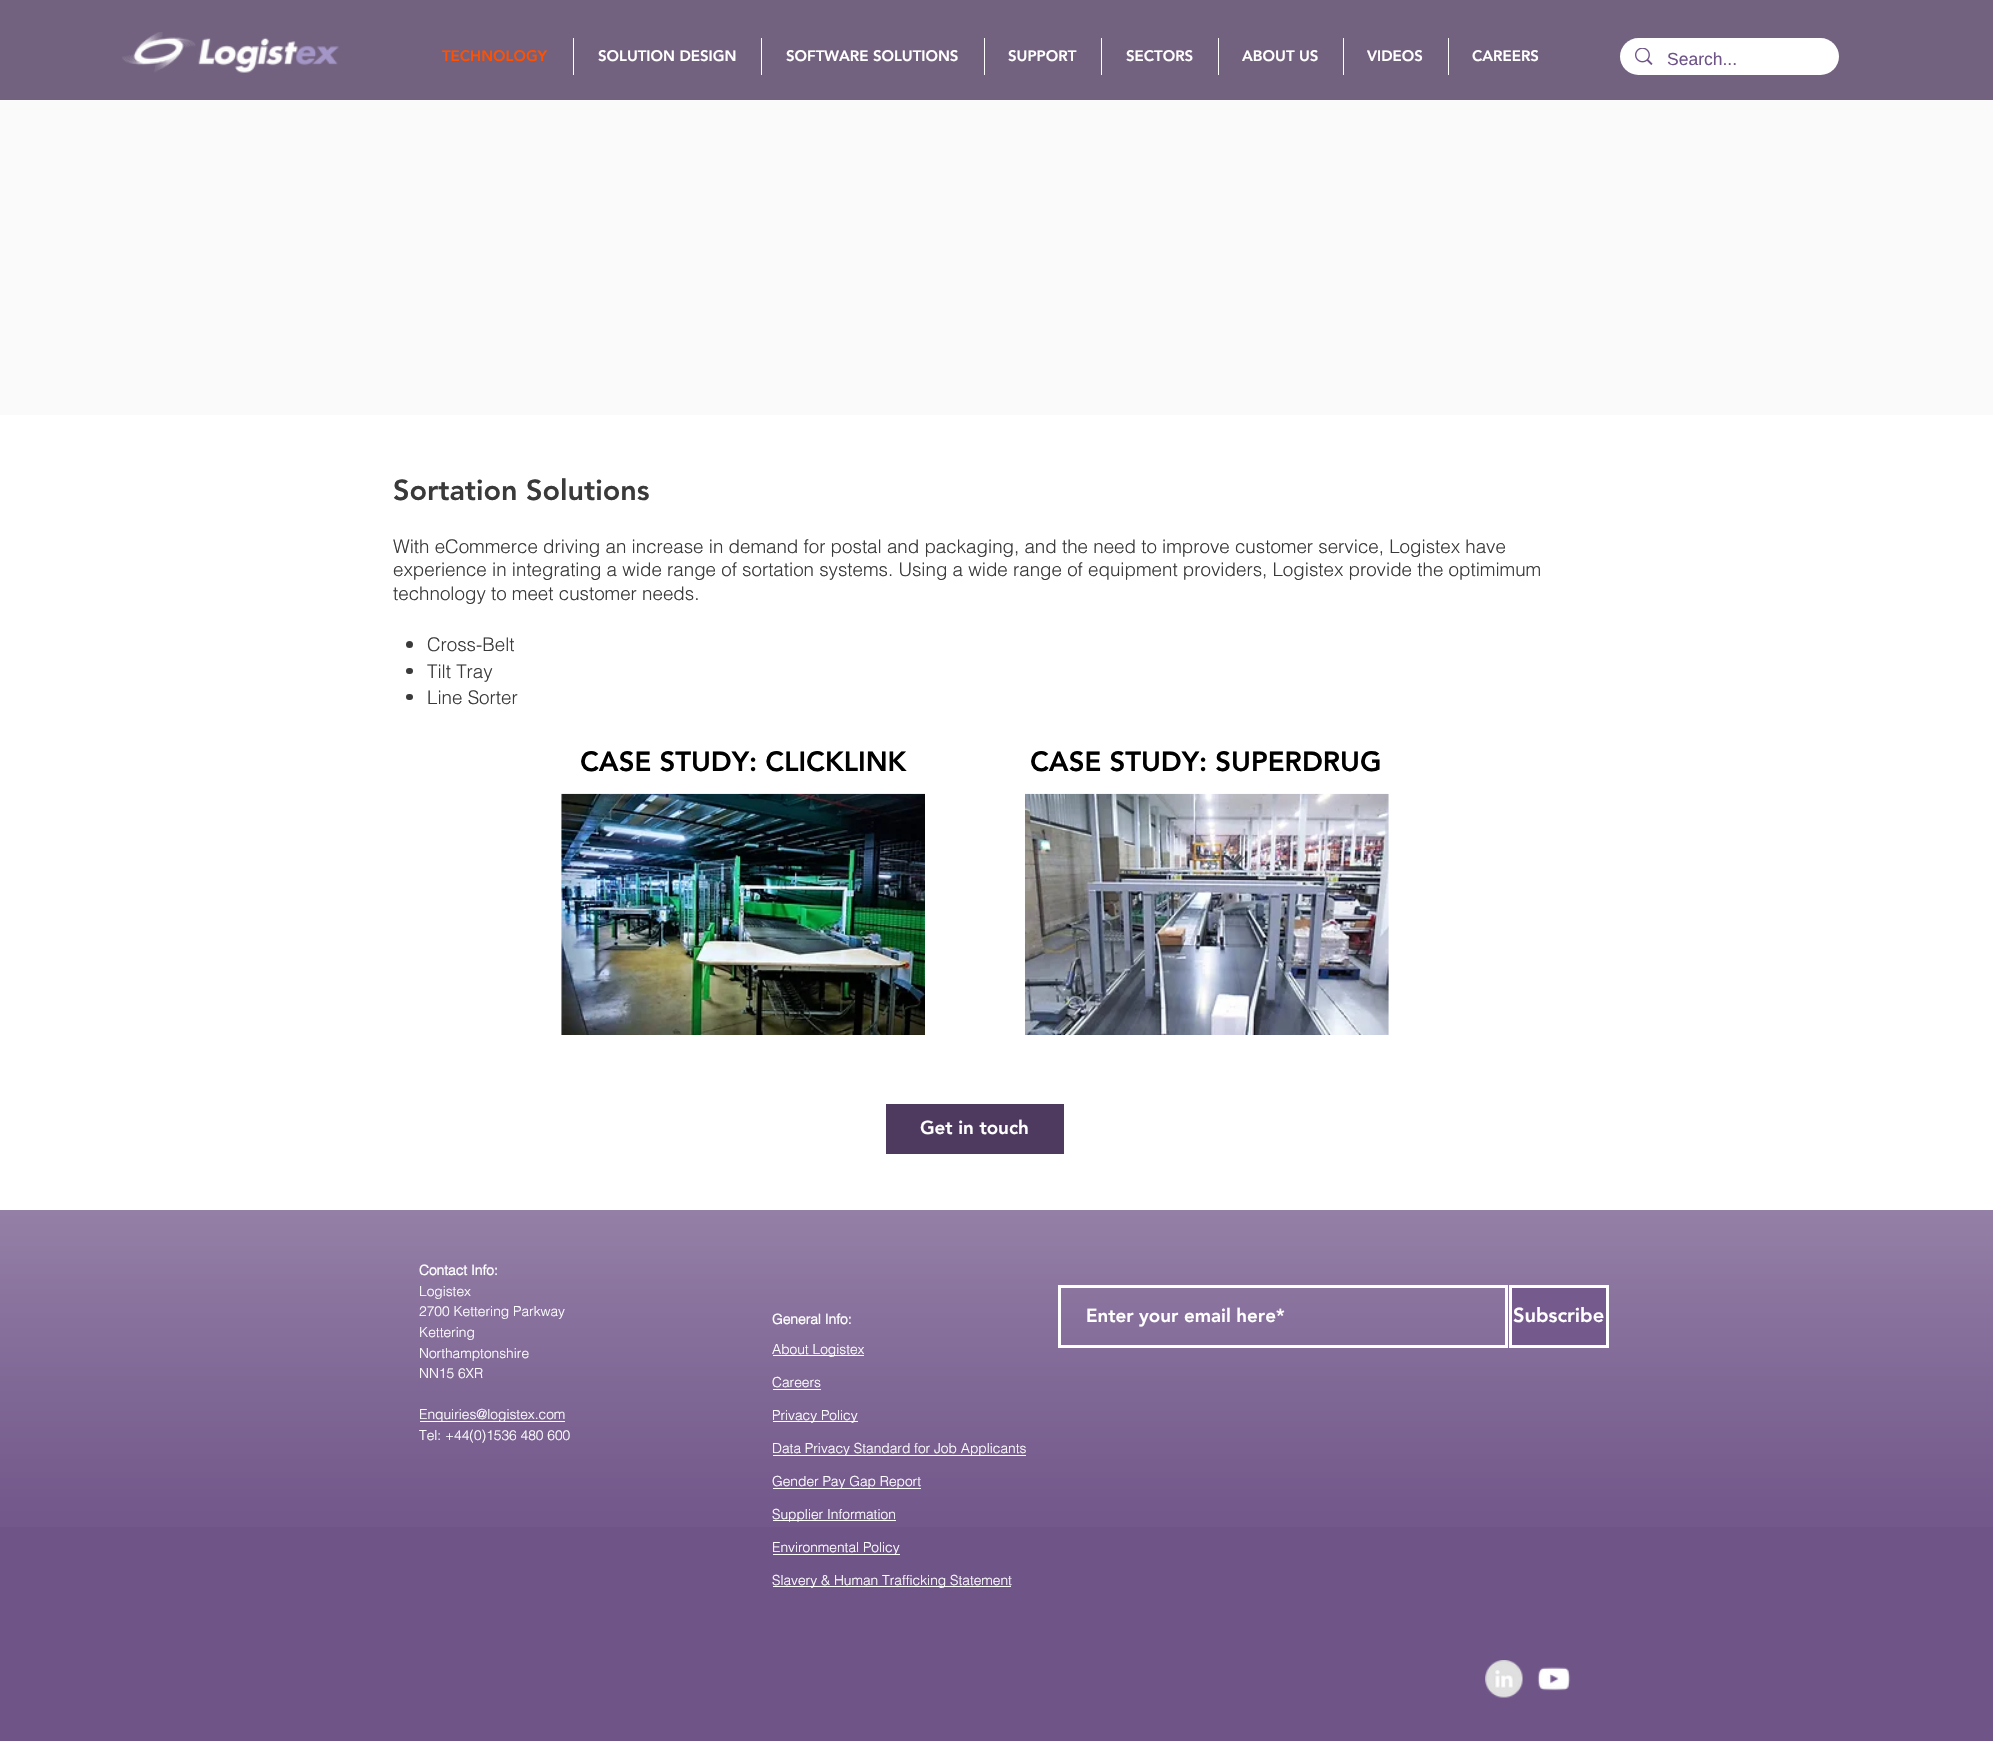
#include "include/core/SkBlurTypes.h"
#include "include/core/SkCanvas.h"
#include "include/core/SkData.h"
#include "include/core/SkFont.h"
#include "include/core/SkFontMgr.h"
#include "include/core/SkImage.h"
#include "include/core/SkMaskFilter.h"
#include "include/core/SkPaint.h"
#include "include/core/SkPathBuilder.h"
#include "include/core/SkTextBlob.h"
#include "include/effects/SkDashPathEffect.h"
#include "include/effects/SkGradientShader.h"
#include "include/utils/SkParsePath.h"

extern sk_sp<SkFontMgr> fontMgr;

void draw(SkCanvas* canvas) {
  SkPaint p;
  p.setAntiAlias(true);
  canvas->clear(SK_ColorWHITE);
  p.setColor(SkColorSetRGB(114, 98, 127));
  canvas->drawRect(SkRect::MakeLTRB(0, 0, 1993, 100), p);
  canvas->drawImageRect(SkImages::DeferredFromEncodedData(SkData::MakeFromFileName("images/1.png")), SkRect::MakeLTRB(122, 32, 339, 73), SkSamplingOptions());
  p.setColor(SK_ColorWHITE);
  canvas->drawRect(SkRect::MakeLTRB(573, 38, 574, 75), p);
  canvas->drawRect(SkRect::MakeLTRB(761, 38, 762, 75), p);
  canvas->drawRect(SkRect::MakeLTRB(984, 38, 985, 75), p);
  canvas->drawRect(SkRect::MakeLTRB(1101, 38, 1102, 75), p);
  canvas->drawRect(SkRect::MakeLTRB(1218, 38, 1219, 75), p);
  canvas->drawRect(SkRect::MakeLTRB(1343, 38, 1344, 75), p);
  canvas->drawRect(SkRect::MakeLTRB(1448, 38, 1449, 75), p);
  canvas->drawRoundRect(SkRect::MakeLTRB(1620, 38, 1839, 75), 18.5f, 18.5f, p);
  canvas->drawImageRect(SkImages::DeferredFromEncodedData(SkData::MakeFromFileName("images/2.png")), SkRect::MakeLTRB(1635, 48, 1653, 65), SkSamplingOptions());
  p.setColor(SkColorSetRGB(250, 250, 250));
  canvas->drawRect(SkRect::MakeLTRB(0, 100, 1993, 415), p);
  p.setColor(SkColorSetRGB(59, 58, 58));
  canvas->drawCircle(409.5f, 644.5f, 3.5f, p);
  canvas->drawRoundRect(SkRect::MakeLTRB(406, 668, 413, 674), 3, 3, p);
  canvas->drawRoundRect(SkRect::MakeLTRB(406, 694, 413, 700), 3, 3, p);
  canvas->drawImageRect(SkImages::DeferredFromEncodedData(SkData::MakeFromFileName("images/3.png")), SkRect::MakeLTRB(561, 793, 925, 1035), SkSamplingOptions());
  canvas->drawImageRect(SkImages::DeferredFromEncodedData(SkData::MakeFromFileName("images/4.png")), SkRect::MakeLTRB(1025, 793, 1389, 1035), SkSamplingOptions());
  p.setColor(SkColorSetRGB(78, 58, 95));
  canvas->drawRect(SkRect::MakeLTRB(886, 1104, 1064, 1154), p);
  p.setColor(SkColorSetRGB(111, 84, 136));
  canvas->drawRect(SkRect::MakeLTRB(0, 1210, 1993, 1741), p);
  canvas->drawImageRect(SkImages::DeferredFromEncodedData(SkData::MakeFromFileName("images/5.png")), SkRect::MakeLTRB(0, 1210, 1993, 1527), SkSamplingOptions());
  p.setColor(SK_ColorWHITE);
  canvas->drawRect(SkRect::MakeLTRB(420, 1421, 565, 1422), p);
  canvas->drawRect(SkRect::MakeLTRB(773, 1355, 864, 1356), p);
  canvas->drawRect(SkRect::MakeLTRB(773, 1389, 821, 1390), p);
  canvas->drawRect(SkRect::MakeLTRB(773, 1421, 858, 1422), p);
  canvas->drawRect(SkRect::MakeLTRB(773, 1455, 1026, 1456), p);
  canvas->drawRect(SkRect::MakeLTRB(773, 1488, 921, 1489), p);
  canvas->drawRect(SkRect::MakeLTRB(773, 1520, 896, 1521), p);
  canvas->drawRect(SkRect::MakeLTRB(773, 1554, 900, 1555), p);
  canvas->drawRect(SkRect::MakeLTRB(773, 1586, 1011, 1587), p);
  p.setStyle(SkPaint::kStroke_Style);
  p.setStrokeWidth(3);
  canvas->drawRect(SkRect::MakeLTRB(1059.5f, 1286.5f, 1506.5f, 1346.5f), p);
  p.setStyle(SkPaint::kFill_Style);
  p.setColor(SkColorSetARGB(204, 111, 84, 136));
  canvas->drawRect(SkRect::MakeLTRB(1510.5f, 1286.5f, 1607.5f, 1346.5f), p);
  p.setStyle(SkPaint::kStroke_Style);
  p.setColor(SK_ColorWHITE);
  canvas->drawRect(SkRect::MakeLTRB(1510.5f, 1286.5f, 1607.5f, 1346.5f), p);
  canvas->drawImageRect(SkImages::DeferredFromEncodedData(SkData::MakeFromFileName("images/6.png")), SkRect::MakeLTRB(1485, 1660, 1523, 1698), SkSamplingOptions());
  canvas->drawImageRect(SkImages::DeferredFromEncodedData(SkData::MakeFromFileName("images/7.png")), SkRect::MakeLTRB(1537, 1667, 1571, 1691), SkSamplingOptions());
  SkFont font1(fontMgr->matchFamilyStyle("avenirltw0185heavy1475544", SkFontStyle(900, SkFontStyle::kNormal_Width, SkFontStyle::kUpright_Slant)), 15);
  font1.setSubpixel(true);
  p.setStyle(SkPaint::kFill_Style);
  p.setColor(SkColorSetRGB(254, 80, 0));
  canvas->drawString("TECHNOLOGY", 442, 61, font1, p);
  p.setColor(SK_ColorWHITE);
  canvas->drawString("SOLUTION DESIGN", 598, 61, font1, p);
  canvas->drawString("SOFTWARE SOLUTIONS", 786, 61, font1, p);
  canvas->drawString("SUPPORT", 1008, 61, font1, p);
  canvas->drawString("SECTORS", 1126, 61, font1, p);
  canvas->drawString("ABOUT US", 1242, 61, font1, p);
  canvas->drawString("VIDEOS", 1367, 61, font1, p);
  canvas->drawString("CAREERS", 1472, 61, font1, p);
  SkFont font2(fontMgr->matchFamilyStyle("Liberation Sans", SkFontStyle::Normal()), 17.5f);
  font2.setSubpixel(true);
  p.setColor(SkColorSetRGB(111, 84, 136));
  canvas->drawString("Search...", 1667, 65, font2, p);
  SkFont font3(fontMgr->matchFamilyStyle("avenirltw0185heavy1475544", SkFontStyle(900, SkFontStyle::kNormal_Width, SkFontStyle::kUpright_Slant)), 28.75f);
  font3.setSubpixel(true);
  p.setColor(SkColorSetRGB(59, 58, 58));
  canvas->drawString("Sortation Solutions", 393, 500, font3, p);
  SkFont font4(fontMgr->matchFamilyStyle("helvetica", SkFontStyle(300, SkFontStyle::kNormal_Width, SkFontStyle::kUpright_Slant)), 18.75f);
  font4.setSubpixel(true);
  canvas->drawString("With eCommerce driving an increase in demand for postal and packaging, and the need to improve customer service, Logistex have", 393, 553, font4, p);
  canvas->drawString("experience in integrating a wide range of sortation systems. Using a wide range of equipment providers, Logistex provide the optimimum", 393, 576, font4, p);
  canvas->drawString("technology to meet customer needs.", 393, 600, font4, p);
  canvas->drawString("Cross-Belt", 427, 651, font4, p);
  canvas->drawString("Tilt Tray", 427, 678, font4, p);
  canvas->drawString("Line Sorter", 427, 704, font4, p);
  SkFont font5(fontMgr->matchFamilyStyle("avenirltw0185heavy1475544", SkFontStyle(900, SkFontStyle::kNormal_Width, SkFontStyle::kUpright_Slant)), 27.5f);
  font5.setSubpixel(true);
  p.setColor(SK_ColorBLACK);
  canvas->drawString("CASE STUDY: CLICKLINK", 580, 771, font5, p);
  canvas->drawString("CASE STUDY: SUPERDRUG", 1030, 771, font5, p);
  SkFont font6(fontMgr->matchFamilyStyle("avenirltw0185heavy1475544", SkFontStyle(900, SkFontStyle::kNormal_Width, SkFontStyle::kUpright_Slant)), 18.75f);
  font6.setSubpixel(true);
  p.setColor(SK_ColorWHITE);
  canvas->drawString("Get in touch", 920, 1134, font6, p);
  SkFont font7(fontMgr->matchFamilyStyle("helvetica", SkFontStyle::Bold()), 13.75f);
  font7.setSubpixel(true);
  canvas->drawString("Contact Info:", 419, 1275, font7, p);
  SkFont font8(fontMgr->matchFamilyStyle("helvetica", SkFontStyle(300, SkFontStyle::kNormal_Width, SkFontStyle::kUpright_Slant)), 13.75f);
  font8.setSubpixel(true);
  canvas->drawString("Logistex", 419, 1296, font8, p);
  canvas->drawString("2700 Kettering Parkway", 419, 1316, font8, p);
  canvas->drawString("Kettering", 419, 1337, font8, p);
  canvas->drawString("Northamptonshire", 419, 1358, font8, p);
  canvas->drawString("NN15 6XR", 419, 1378, font8, p);
  canvas->drawString("Enquiries@logistex.com", 419, 1419, font8, p);
  canvas->drawString("Tel: +44(0)1536 480 600", 419, 1440, font8, p);
  canvas->drawString("General Info:", 772, 1324, font7, p);
  canvas->drawString("About Logistex", 772, 1354, font8, p);
  canvas->drawString("Careers", 772, 1387, font8, p);
  canvas->drawString("Privacy Policy", 772, 1420, font8, p);
  canvas->drawString("Data Privacy Standard for Job Applicants", 772, 1453, font8, p);
  canvas->drawString("Gender Pay Gap Report", 772, 1486, font8, p);
  canvas->drawString("Supplier Information", 772, 1519, font8, p);
  canvas->drawString("Environmental Policy", 772, 1552, font8, p);
  canvas->drawString("Slavery & Human Trafficking Statement", 772, 1585, font8, p);
  canvas->drawString("Enter your email here*", 1086, 1322, font6, p);
  SkFont font9(fontMgr->matchFamilyStyle("avenirltw0185heavy1475544", SkFontStyle(900, SkFontStyle::kNormal_Width, SkFontStyle::kUpright_Slant)), 20);
  font9.setSubpixel(true);
  canvas->drawString("Subscribe", 1513, 1322, font9, p);
}
